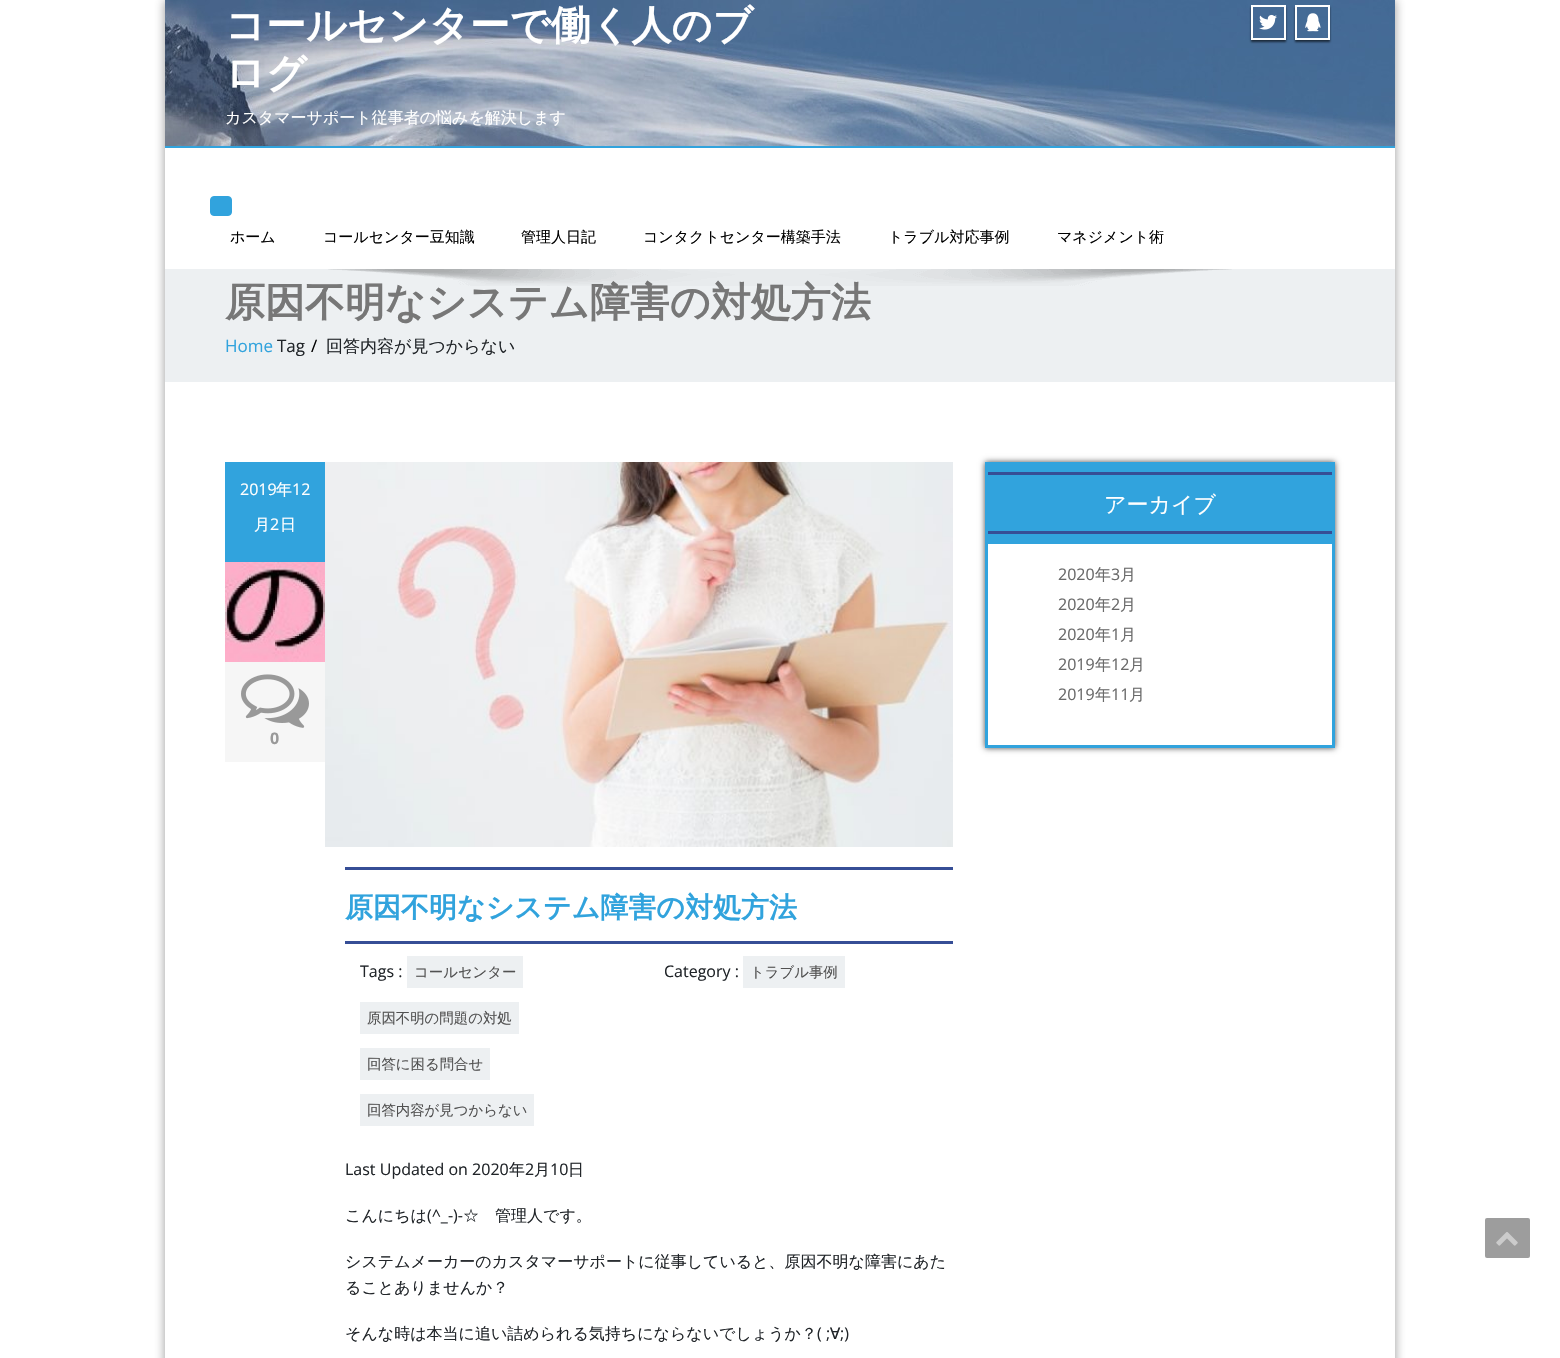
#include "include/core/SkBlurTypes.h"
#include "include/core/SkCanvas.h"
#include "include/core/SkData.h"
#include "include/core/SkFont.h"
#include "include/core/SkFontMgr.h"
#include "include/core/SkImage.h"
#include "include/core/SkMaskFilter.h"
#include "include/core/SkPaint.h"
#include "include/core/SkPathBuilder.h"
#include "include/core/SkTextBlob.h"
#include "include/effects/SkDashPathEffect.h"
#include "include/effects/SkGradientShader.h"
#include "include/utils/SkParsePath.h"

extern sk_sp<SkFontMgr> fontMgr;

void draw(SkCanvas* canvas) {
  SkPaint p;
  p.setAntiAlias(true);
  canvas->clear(SK_ColorWHITE);
  canvas->save();
  canvas->clipPath(SkPathBuilder(SkPathFillType::kEvenOdd).moveTo(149, 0).lineTo(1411, 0).lineTo(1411, 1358).lineTo(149, 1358).close().moveTo(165, 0).lineTo(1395, 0).lineTo(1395, 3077).lineTo(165, 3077).close().detach(), true);
  p.setColor(SkColorSetARGB(128, 48, 48, 48));
  p.setMaskFilter(SkMaskFilter::MakeBlur(kNormal_SkBlurStyle, 5));
  canvas->drawRect(SkRect::MakeLTRB(165, 0, 1395, 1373), p);
  p.setMaskFilter(nullptr);
  canvas->restore();
  canvas->drawImageRect(SkImages::DeferredFromEncodedData(SkData::MakeFromFileName("images/1.png")), SkRect::MakeLTRB(165, 0, 1395, 146), SkSamplingOptions());
  canvas->save();
  canvas->clipPath(SkPathBuilder(SkPathFillType::kEvenOdd).moveTo(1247, 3).lineTo(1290, 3).lineTo(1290, 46).lineTo(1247, 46).close().moveTo(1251, 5).lineTo(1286, 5).lineTo(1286, 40).lineTo(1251, 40).close().detach(), true);
  p.setColor(SkColorSetARGB(153, 0, 0, 0));
  p.setMaskFilter(SkMaskFilter::MakeBlur(kNormal_SkBlurStyle, 1));
  canvas->drawRect(SkRect::MakeLTRB(1251, 7, 1286, 42), p);
  p.setMaskFilter(nullptr);
  canvas->restore();
  p.setStyle(SkPaint::kStroke_Style);
  p.setStrokeWidth(2);
  p.setColor(SK_ColorWHITE);
  canvas->drawRect(SkRect::MakeLTRB(1252, 6, 1285, 39), p);
  canvas->drawImageRect(SkImages::DeferredFromEncodedData(SkData::MakeFromFileName("images/2.png")), SkRect::MakeLTRB(1259, 14, 1277, 30), SkSamplingOptions());
  canvas->save();
  canvas->clipPath(SkPathBuilder(SkPathFillType::kEvenOdd).moveTo(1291, 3).lineTo(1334, 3).lineTo(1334, 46).lineTo(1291, 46).close().moveTo(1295, 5).lineTo(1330, 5).lineTo(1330, 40).lineTo(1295, 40).close().detach(), true);
  p.setStyle(SkPaint::kFill_Style);
  p.setColor(SkColorSetARGB(153, 0, 0, 0));
  p.setMaskFilter(SkMaskFilter::MakeBlur(kNormal_SkBlurStyle, 1));
  canvas->drawRect(SkRect::MakeLTRB(1295, 7, 1330, 42), p);
  p.setMaskFilter(nullptr);
  canvas->restore();
  p.setStyle(SkPaint::kStroke_Style);
  p.setColor(SK_ColorWHITE);
  canvas->drawRect(SkRect::MakeLTRB(1296, 6, 1329, 39), p);
  canvas->drawImageRect(SkImages::DeferredFromEncodedData(SkData::MakeFromFileName("images/3.png")), SkRect::MakeLTRB(1305, 13, 1321, 32), SkSamplingOptions());
  p.setStyle(SkPaint::kFill_Style);
  p.setColor(SkColorSetRGB(49, 163, 221));
  canvas->drawRect(SkRect::MakeLTRB(165, 146, 1395, 148), p);
  canvas->drawRoundRect(SkRect::MakeLTRB(210.5f, 196.5f, 231.5f, 215.5f), 3.5f, 3.5f, p);
  p.setStyle(SkPaint::kStroke_Style);
  p.setStrokeWidth(1);
  canvas->drawRoundRect(SkRect::MakeLTRB(210.5f, 196.5f, 231.5f, 215.5f), 3.5f, 3.5f, p);
  p.setStyle(SkPaint::kFill_Style);
  p.setColor(SkColorSetRGB(237, 240, 242));
  canvas->drawRect(SkRect::MakeLTRB(165, 269, 1395, 382), p);
  p.setColor(SkColorSetRGB(49, 163, 221));
  canvas->drawRect(SkRect::MakeLTRB(225, 462, 325, 562), p);
  canvas->drawImageRect(SkImages::DeferredFromEncodedData(SkData::MakeFromFileName("images/5.png")), SkRect::MakeLTRB(225, 562, 325, 662), SkSamplingOptions());
  p.setColor(SkColorSetRGB(246, 246, 246));
  canvas->drawRect(SkRect::MakeLTRB(225, 662, 325, 762), p);
  canvas->drawImageRect(SkImages::DeferredFromEncodedData(SkData::MakeFromFileName("images/6.png")), SkRect::MakeLTRB(241, 674, 309, 728), SkSamplingOptions());
  canvas->drawImageRect(SkImages::DeferredFromEncodedData(SkData::MakeFromFileName("images/7.png")), SkRect::MakeLTRB(325, 462, 953, 847), SkSamplingOptions());
  p.setColor(SkColorSetRGB(54, 78, 150));
  canvas->drawRect(SkRect::MakeLTRB(345, 867, 953, 870), p);
  canvas->drawRect(SkRect::MakeLTRB(345, 941, 953, 944), p);
  p.setColor(SkColorSetRGB(237, 240, 242));
  canvas->drawRect(SkRect::MakeLTRB(407, 956, 523, 988), p);
  canvas->drawRect(SkRect::MakeLTRB(360, 1002, 519, 1034), p);
  canvas->drawRect(SkRect::MakeLTRB(360, 1048, 490, 1080), p);
  canvas->drawRect(SkRect::MakeLTRB(360, 1094, 534, 1126), p);
  canvas->drawRect(SkRect::MakeLTRB(743, 956, 845, 988), p);
  canvas->save();
  canvas->clipPath(SkPathBuilder(SkPathFillType::kEvenOdd).moveTo(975, 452).lineTo(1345, 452).lineTo(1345, 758).lineTo(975, 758).close().moveTo(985, 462).lineTo(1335, 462).lineTo(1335, 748).lineTo(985, 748).close().detach(), true);
  p.setColor(SkColorSetARGB(179, 0, 0, 0));
  p.setMaskFilter(SkMaskFilter::MakeBlur(kNormal_SkBlurStyle, 3));
  canvas->drawRect(SkRect::MakeLTRB(985, 462, 1335, 748), p);
  p.setMaskFilter(nullptr);
  canvas->restore();
  p.setColor(SkColorSetRGB(49, 163, 221));
  canvas->drawRect(SkRect::MakeLTRB(1332, 462, 1335, 748), p);
  canvas->drawRect(SkRect::MakeLTRB(985, 745, 1335, 748), p);
  canvas->drawRect(SkRect::MakeLTRB(985, 462, 988, 748), p);
  canvas->drawRect(SkRect::MakeLTRB(988, 462, 1332, 544), p);
  p.setColor(SkColorSetRGB(54, 78, 150));
  canvas->drawRect(SkRect::MakeLTRB(988, 472, 1332, 475), p);
  canvas->drawRect(SkRect::MakeLTRB(988, 531, 1332, 534), p);
  p.setColor(SkColorSetRGB(157, 157, 157));
  canvas->drawRoundRect(SkRect::MakeLTRB(1485, 1218, 1530, 1258), 2, 2, p);
  canvas->drawImageRect(SkImages::DeferredFromEncodedData(SkData::MakeFromFileName("images/8.png")), SkRect::MakeLTRB(1496, 1232, 1518, 1246), SkSamplingOptions());
  SkFont font1(fontMgr->matchFamilyStyle("WenQuanYi Zen Hei", SkFontStyle::Bold()), 40);
  font1.setSubpixel(true);
  p.setColor(SK_ColorWHITE);
  canvas->drawString("コールセンターで働く人のブ", 225, 39, font1, p);
  canvas->drawString("ログ", 225, 87, font1, p);
  SkFont font2(fontMgr->matchFamilyStyle("WenQuanYi Zen Hei", SkFontStyle(500, SkFontStyle::kNormal_Width, SkFontStyle::kUpright_Slant)), 16);
  font2.setSubpixel(true);
  canvas->drawString("カスタマーサポート従事者の悩みを解決します", 225, 123, font2, p);
  SkFont font3(fontMgr->matchFamilyStyle("WenQuanYi Zen Hei", SkFontStyle(500, SkFontStyle::kNormal_Width, SkFontStyle::kUpright_Slant)), 15);
  font3.setSubpixel(true);
  p.setColor(SK_ColorBLACK);
  canvas->drawString("ホーム", 230, 242, font3, p);
  canvas->drawString("コールセンター豆知識", 323, 242, font3, p);
  canvas->drawString("管理人日記", 521, 242, font3, p);
  canvas->drawString("コンタクトセンター構築手法", 643, 242, font3, p);
  canvas->drawString("トラブル対応事例", 888, 242, font3, p);
  canvas->drawString("マネジメント術", 1057, 242, font3, p);
  p.setColor(SkColorSetRGB(119, 119, 119));
  canvas->drawString("原因不明なシステム障害の対処方法", 225, 316, font1, p);
  canvas->drawImageRect(SkImages::DeferredFromEncodedData(SkData::MakeFromFileName("images/4.png")), SkRect::MakeLTRB(328, 269, 1232, 286), SkSamplingOptions());
  SkFont font4(fontMgr->matchFamilyStyle("Open Sans", SkFontStyle::Normal()), 17);
  font4.setSubpixel(true);
  p.setColor(SkColorSetRGB(49, 163, 221));
  canvas->drawString("Home", 225, 352, font4, p);
  p.setColor(SkColorSetRGB(33, 37, 41));
  canvas->drawString("Tag", 277, 352, font4, p);
  p.setColor(SK_ColorBLACK);
  canvas->drawString("/", 311, 352, font4, p);
  SkFont font5(fontMgr->matchFamilyStyle("WenQuanYi Zen Hei", SkFontStyle(500, SkFontStyle::kNormal_Width, SkFontStyle::kUpright_Slant)), 17);
  font5.setSubpixel(true);
  p.setColor(SkColorSetRGB(33, 37, 41));
  canvas->drawString("回答内容が見つからない", 326, 352, font5, p);
  SkFont font6(fontMgr->matchFamilyStyle("Open Sans", SkFontStyle::Normal()), 16);
  font6.setSubpixel(true);
  p.setColor(SK_ColorWHITE);
  canvas->drawString("2019", 240, 495, font6, p);
  canvas->drawString("年", 276, 495, font2, p);
  canvas->drawString("12", 292, 495, font6, p);
  canvas->drawString("月", 254, 530, font2, p);
  canvas->drawString("2", 270, 530, font6, p);
  canvas->drawString("日", 280, 530, font2, p);
  SkFont font7(fontMgr->matchFamilyStyle("Open Sans", SkFontStyle::Bold()), 16);
  font7.setSubpixel(true);
  p.setColor(SkColorSetRGB(153, 153, 153));
  canvas->drawString("0", 270, 744, font7, p);
  SkFont font8(fontMgr->matchFamilyStyle("WenQuanYi Zen Hei", SkFontStyle::Bold()), 28);
  font8.setSubpixel(true);
  p.setColor(SkColorSetRGB(49, 163, 221));
  canvas->drawString("原因不明なシステム障害の対処方法", 345, 917, font8, p);
  p.setColor(SkColorSetRGB(33, 37, 41));
  canvas->drawString("Tags :", 360, 977, font6, p);
  SkFont font9(fontMgr->matchFamilyStyle("WenQuanYi Zen Hei", SkFontStyle(500, SkFontStyle::kNormal_Width, SkFontStyle::kUpright_Slant)), 14.4f);
  font9.setSubpixel(true);
  p.setColor(SkColorSetRGB(81, 81, 81));
  canvas->drawString("コールセンター", 414, 977, font9, p);
  canvas->drawString("原因不明の問題の対処", 367, 1023, font9, p);
  canvas->drawString("回答に困る問合せ", 367, 1069, font9, p);
  canvas->drawString("回答内容が見つからない", 367, 1115, font9, p);
  p.setColor(SkColorSetRGB(33, 37, 41));
  canvas->drawString("Category :", 664, 977, font6, p);
  p.setColor(SkColorSetRGB(81, 81, 81));
  canvas->drawString("トラブル事例", 750, 977, font9, p);
  p.setColor(SkColorSetRGB(33, 37, 41));
  canvas->drawString("Last Updated on 2020", 345, 1175, font6, p);
  canvas->drawString("年", 509, 1175, font2, p);
  canvas->drawString("2", 525, 1175, font6, p);
  canvas->drawString("月", 534, 1175, font2, p);
  canvas->drawString("10", 550, 1175, font6, p);
  canvas->drawString("日", 568, 1175, font2, p);
  canvas->drawString("こんにちは", 345, 1221, font2, p);
  canvas->drawString("(^_-)-", 427, 1221, font6, p);
  canvas->drawString("☆　管理人です。", 463, 1221, font2, p);
  canvas->drawString("システムメーカーのカスタマーサポートに従事していると、原因不明な障害にあた", 345, 1267, font2, p);
  canvas->drawString("ることありませんか？", 345, 1293, font2, p);
  canvas->drawString("そんな時は本当に追い詰められる気持ちにならないでしょうか？", 345, 1339, font2, p);
  canvas->drawString("( ;", 817, 1339, font6, p);
  canvas->drawString("∀", 830, 1339, font2, p);
  canvas->drawString(";)", 840, 1339, font6, p);
  SkFont font10(fontMgr->matchFamilyStyle("WenQuanYi Zen Hei", SkFontStyle(500, SkFontStyle::kNormal_Width, SkFontStyle::kUpright_Slant)), 22);
  font10.setSubpixel(true);
  p.setColor(SK_ColorWHITE);
  canvas->drawString("アーカイブ", 1104, 512, font10, p);
  p.setColor(SkColorSetRGB(106, 106, 106));
  canvas->drawString("2020", 1058, 580, font6, p);
  canvas->drawString("年", 1095, 580, font2, p);
  canvas->drawString("3", 1111, 580, font6, p);
  canvas->drawString("月", 1120, 580, font2, p);
  canvas->drawString("2020", 1058, 610, font6, p);
  canvas->drawString("年", 1095, 610, font2, p);
  canvas->drawString("2", 1111, 610, font6, p);
  canvas->drawString("月", 1120, 610, font2, p);
  canvas->drawString("2020", 1058, 640, font6, p);
  canvas->drawString("年", 1095, 640, font2, p);
  canvas->drawString("1", 1111, 640, font6, p);
  canvas->drawString("月", 1120, 640, font2, p);
  canvas->drawString("2019", 1058, 670, font6, p);
  canvas->drawString("年", 1095, 670, font2, p);
  canvas->drawString("12", 1111, 670, font6, p);
  canvas->drawString("月", 1129, 670, font2, p);
  canvas->drawString("2019", 1058, 700, font6, p);
  canvas->drawString("年", 1095, 700, font2, p);
  canvas->drawString("11", 1111, 700, font6, p);
  canvas->drawString("月", 1129, 700, font2, p);
}
